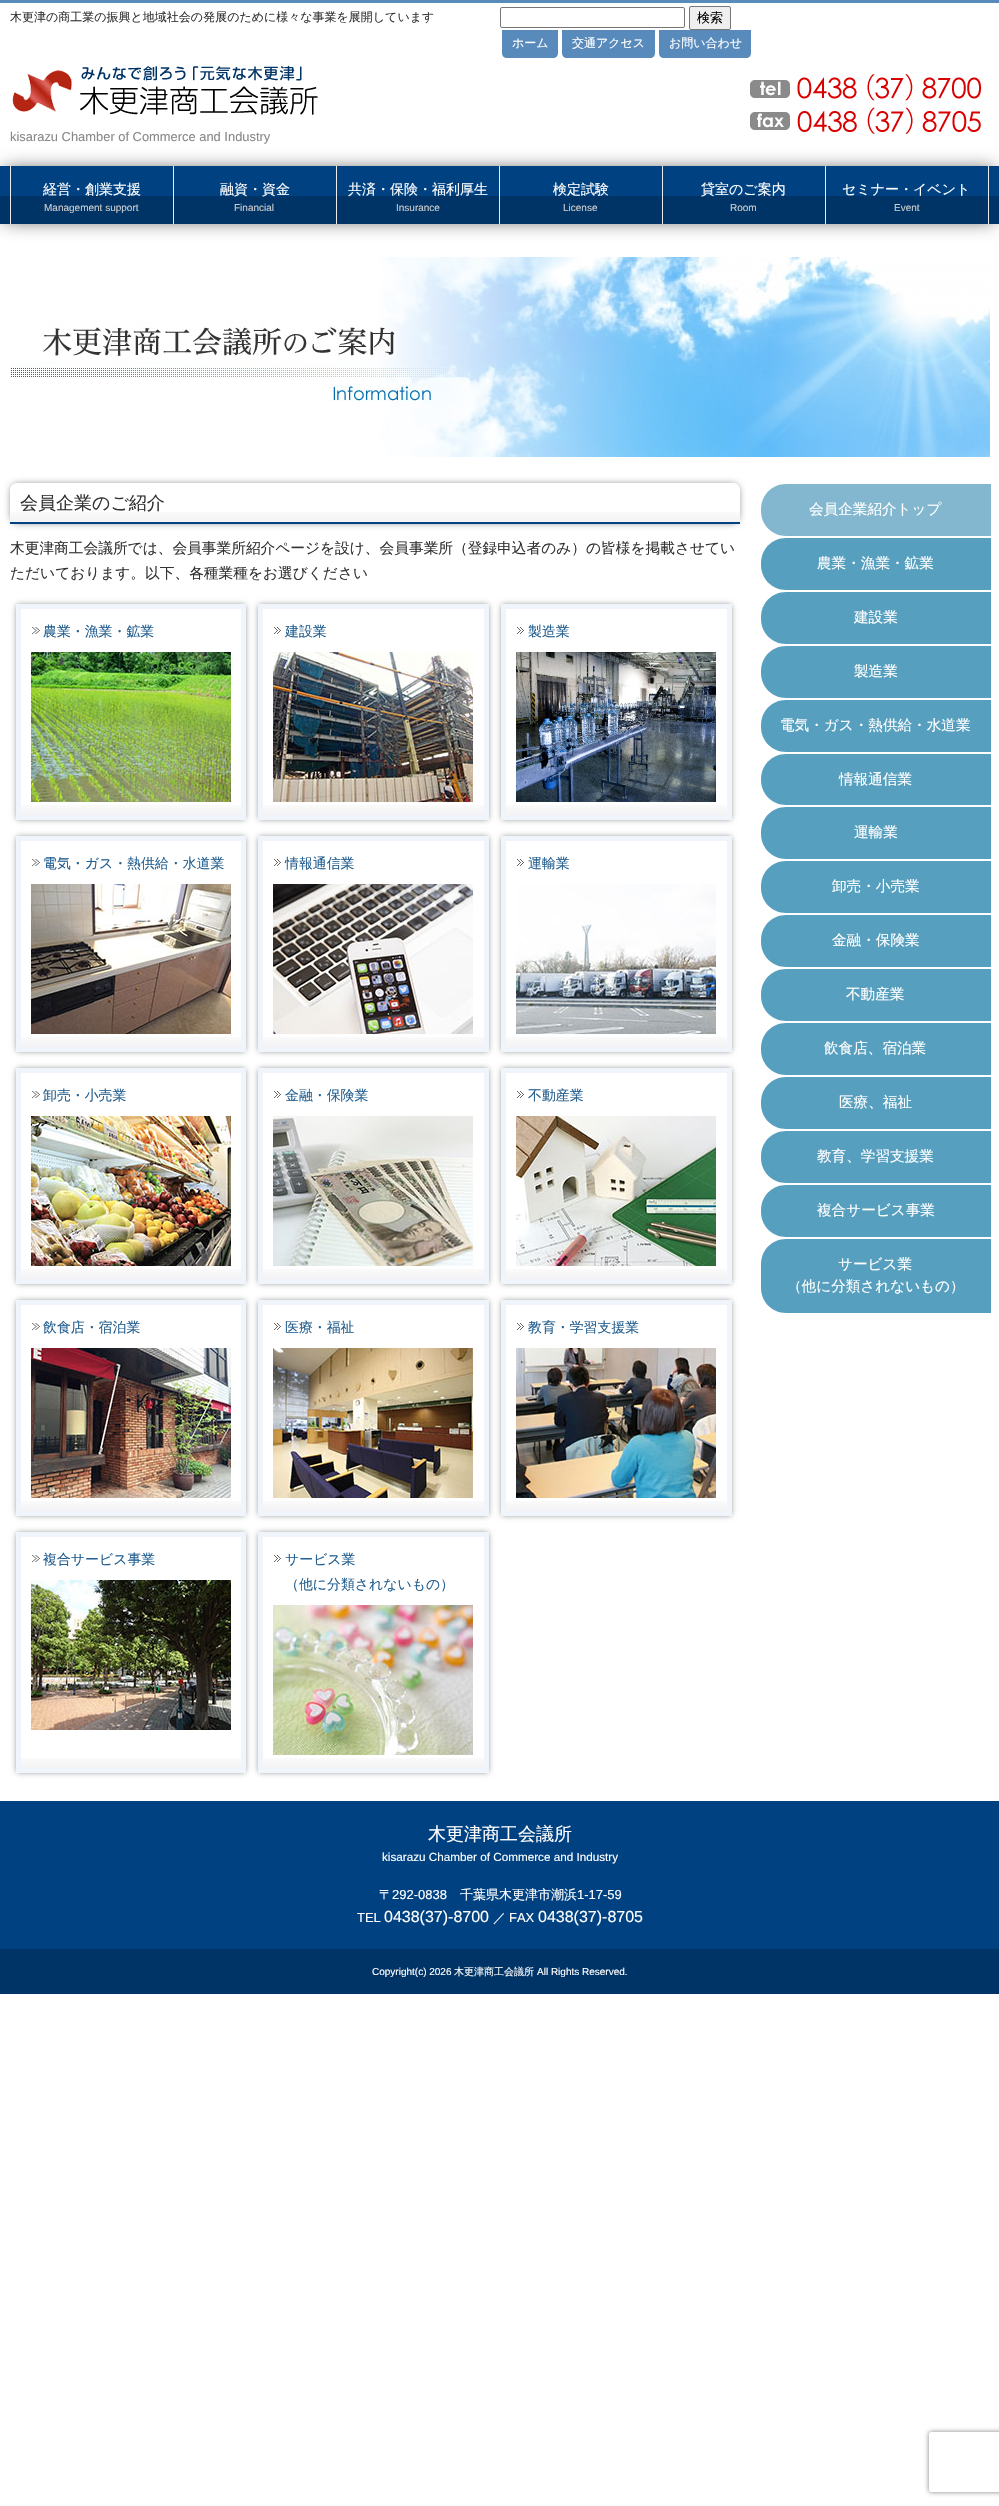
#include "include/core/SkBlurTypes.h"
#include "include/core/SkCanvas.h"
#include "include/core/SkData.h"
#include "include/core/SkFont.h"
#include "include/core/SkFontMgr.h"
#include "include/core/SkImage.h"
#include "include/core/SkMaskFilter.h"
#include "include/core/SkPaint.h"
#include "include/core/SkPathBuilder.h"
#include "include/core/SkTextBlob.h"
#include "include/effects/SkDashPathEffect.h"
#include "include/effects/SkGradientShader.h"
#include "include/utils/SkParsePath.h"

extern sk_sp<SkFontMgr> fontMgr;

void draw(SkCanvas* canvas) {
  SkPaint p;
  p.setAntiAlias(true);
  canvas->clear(SK_ColorWHITE);
  p.setColor(SkColorSetRGB(88, 138, 188));
  canvas->drawRect(SkRect::MakeLTRB(0, 0, 999, 3), p);
  p.setStyle(SkPaint::kStroke_Style);
  p.setStrokeWidth(1);
  p.setColor(SkColorSetRGB(118, 118, 118));
  canvas->drawRoundRect(SkRect::MakeLTRB(500.5f, 7.5f, 684.5f, 27.5f), 1.5f, 1.5f, p);
  p.setStyle(SkPaint::kFill_Style);
  p.setColor(SkColorSetRGB(239, 239, 239));
  canvas->drawRoundRect(SkRect::MakeLTRB(689.5f, 6.5f, 730.5f, 29.5f), 1.5f, 1.5f, p);
  p.setStyle(SkPaint::kStroke_Style);
  p.setColor(SkColorSetRGB(118, 118, 118));
  canvas->drawRoundRect(SkRect::MakeLTRB(689.5f, 6.5f, 730.5f, 29.5f), 1.5f, 1.5f, p);
  p.setStyle(SkPaint::kFill_Style);
  p.setColor(SkColorSetRGB(88, 138, 188));
  canvas->drawPath(SkPathBuilder().moveTo(502, 30).lineTo(558, 30).lineTo(558, 53).cubicTo(558, 56, 556, 58, 553, 58).lineTo(507, 58).cubicTo(504, 58, 502, 56, 502, 53).close().detach(), p);
  canvas->drawPath(SkPathBuilder().moveTo(562, 30).lineTo(655, 30).lineTo(655, 53).cubicTo(655, 56, 653, 58, 650, 58).lineTo(567, 58).cubicTo(564, 58, 562, 56, 562, 53).close().detach(), p);
  canvas->drawPath(SkPathBuilder().moveTo(659, 30).lineTo(751, 30).lineTo(751, 53).cubicTo(751, 56, 749, 58, 746, 58).lineTo(664, 58).cubicTo(661, 58, 659, 56, 659, 53).close().detach(), p);
  canvas->drawImageRect(SkImages::DeferredFromEncodedData(SkData::MakeFromFileName("images/1.png")), SkRect::MakeLTRB(750, 74, 981, 134), SkSamplingOptions());
  canvas->drawImageRect(SkImages::DeferredFromEncodedData(SkData::MakeFromFileName("images/2.png")), SkRect::MakeLTRB(12, 65, 318, 115), SkSamplingOptions());
  p.setColor(SkColorSetARGB(204, 0, 0, 0));
  p.setMaskFilter(SkMaskFilter::MakeBlur(kNormal_SkBlurStyle, 10));
  canvas->drawRect(SkRect::MakeLTRB(5, 171, 994, 219), p);
  p.setMaskFilter(nullptr);
  canvas->drawImageRect(SkImages::DeferredFromEncodedData(SkData::MakeFromFileName("images/3.png")), SkRect::MakeLTRB(0, 166, 999, 224), SkSamplingOptions());
  p.setColor(SkColorSetRGB(235, 235, 235));
  canvas->drawRect(SkRect::MakeLTRB(988, 166, 989, 224), p);
  canvas->drawRect(SkRect::MakeLTRB(10, 166, 11, 224), p);
  canvas->drawRect(SkRect::MakeLTRB(173, 166, 174, 224), p);
  canvas->drawRect(SkRect::MakeLTRB(336, 166, 337, 224), p);
  canvas->drawRect(SkRect::MakeLTRB(499, 166, 500, 224), p);
  canvas->drawRect(SkRect::MakeLTRB(662, 166, 663, 224), p);
  canvas->drawRect(SkRect::MakeLTRB(825, 166, 826, 224), p);
  canvas->drawImageRect(SkImages::DeferredFromEncodedData(SkData::MakeFromFileName("images/4.png")), SkRect::MakeLTRB(10, 257, 990, 457), SkSamplingOptions());
  p.setColor(SkColorSetARGB(204, 0, 0, 0));
  p.setMaskFilter(SkMaskFilter::MakeBlur(kNormal_SkBlurStyle, 4));
  canvas->drawRoundRect(SkRect::MakeLTRB(13, 486, 737, 521), 4, 4, p);
  p.setMaskFilter(nullptr);
  p.setColor(SK_ColorWHITE);
  canvas->drawPath(SkPathBuilder().moveTo(17, 483).lineTo(733, 483).cubicTo(737, 483, 740, 486, 740, 490).lineTo(740, 524).lineTo(10, 524).lineTo(10, 490).cubicTo(10, 486, 13, 483, 17, 483).close().detach(), p);
  canvas->drawImageRect(SkImages::DeferredFromEncodedData(SkData::MakeFromFileName("images/5.png")), SkRect::MakeLTRB(10, 512, 740, 522), SkSamplingOptions());
  p.setColor(SkColorSetRGB(0, 65, 130));
  canvas->drawRect(SkRect::MakeLTRB(10, 522, 740, 524), p);
  canvas->save();
  canvas->clipPath(SkPathBuilder(SkPathFillType::kEvenOdd).moveTo(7, 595).lineTo(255, 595).lineTo(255, 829).lineTo(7, 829).close().moveTo(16, 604).lineTo(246, 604).lineTo(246, 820).lineTo(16, 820).close().detach(), true);
  p.setColor(SkColorSetARGB(128, 0, 0, 0));
  p.setMaskFilter(SkMaskFilter::MakeBlur(kNormal_SkBlurStyle, 3));
  canvas->drawRect(SkRect::MakeLTRB(17, 605, 245, 819), p);
  p.setMaskFilter(nullptr);
  canvas->restore();
  canvas->drawImageRect(SkImages::DeferredFromEncodedData(SkData::MakeFromFileName("images/6.png")), SkRect::MakeLTRB(21, 805, 241, 815), SkSamplingOptions());
  p.setStyle(SkPaint::kStroke_Style);
  p.setStrokeWidth(5);
  p.setColor(SkColorSetRGB(239, 245, 251));
  canvas->drawRect(SkRect::MakeLTRB(18.5f, 606.5f, 243.5f, 817.5f), p);
  canvas->drawImageRect(SkImages::DeferredFromEncodedData(SkData::MakeFromFileName("images/7.png")), SkRect::MakeLTRB(32, 627, 40, 634), SkSamplingOptions());
  canvas->drawImageRect(SkImages::DeferredFromEncodedData(SkData::MakeFromFileName("images/8.png")), SkRect::MakeLTRB(31, 652, 231, 802), SkSamplingOptions());
  canvas->save();
  canvas->clipPath(SkPathBuilder(SkPathFillType::kEvenOdd).moveTo(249, 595).lineTo(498, 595).lineTo(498, 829).lineTo(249, 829).close().moveTo(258, 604).lineTo(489, 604).lineTo(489, 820).lineTo(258, 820).close().detach(), true);
  p.setStyle(SkPaint::kFill_Style);
  p.setColor(SkColorSetARGB(128, 0, 0, 0));
  p.setMaskFilter(SkMaskFilter::MakeBlur(kNormal_SkBlurStyle, 3));
  canvas->drawRect(SkRect::MakeLTRB(259, 605, 488, 819), p);
  p.setMaskFilter(nullptr);
  canvas->restore();
  canvas->drawImageRect(SkImages::DeferredFromEncodedData(SkData::MakeFromFileName("images/9.png")), SkRect::MakeLTRB(263, 805, 484, 815), SkSamplingOptions());
  p.setStyle(SkPaint::kStroke_Style);
  p.setColor(SkColorSetRGB(239, 245, 251));
  canvas->drawRect(SkRect::MakeLTRB(260.5f, 606.5f, 486.5f, 817.5f), p);
  canvas->drawImageRect(SkImages::DeferredFromEncodedData(SkData::MakeFromFileName("images/10.png")), SkRect::MakeLTRB(274, 627, 281, 634), SkSamplingOptions());
  canvas->drawImageRect(SkImages::DeferredFromEncodedData(SkData::MakeFromFileName("images/11.png")), SkRect::MakeLTRB(273, 652, 473, 802), SkSamplingOptions());
  canvas->save();
  canvas->clipPath(SkPathBuilder(SkPathFillType::kEvenOdd).moveTo(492, 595).lineTo(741, 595).lineTo(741, 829).lineTo(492, 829).close().moveTo(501, 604).lineTo(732, 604).lineTo(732, 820).lineTo(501, 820).close().detach(), true);
  p.setStyle(SkPaint::kFill_Style);
  p.setColor(SkColorSetARGB(128, 0, 0, 0));
  p.setMaskFilter(SkMaskFilter::MakeBlur(kNormal_SkBlurStyle, 3));
  canvas->drawRect(SkRect::MakeLTRB(502, 605, 731, 819), p);
  p.setMaskFilter(nullptr);
  canvas->restore();
  canvas->drawImageRect(SkImages::DeferredFromEncodedData(SkData::MakeFromFileName("images/9.png")), SkRect::MakeLTRB(506, 805, 727, 815), SkSamplingOptions());
  p.setStyle(SkPaint::kStroke_Style);
  p.setColor(SkColorSetRGB(239, 245, 251));
  canvas->drawRect(SkRect::MakeLTRB(503.5f, 606.5f, 729.5f, 817.5f), p);
  canvas->drawImageRect(SkImages::DeferredFromEncodedData(SkData::MakeFromFileName("images/10.png")), SkRect::MakeLTRB(517, 627, 524, 634), SkSamplingOptions());
  canvas->drawImageRect(SkImages::DeferredFromEncodedData(SkData::MakeFromFileName("images/12.png")), SkRect::MakeLTRB(516, 652, 716, 802), SkSamplingOptions());
  canvas->save();
  canvas->clipPath(SkPathBuilder(SkPathFillType::kEvenOdd).moveTo(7, 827).lineTo(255, 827).lineTo(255, 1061).lineTo(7, 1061).close().moveTo(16, 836).lineTo(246, 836).lineTo(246, 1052).lineTo(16, 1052).close().detach(), true);
  p.setStyle(SkPaint::kFill_Style);
  p.setColor(SkColorSetARGB(128, 0, 0, 0));
  p.setMaskFilter(SkMaskFilter::MakeBlur(kNormal_SkBlurStyle, 3));
  canvas->drawRect(SkRect::MakeLTRB(17, 837, 245, 1051), p);
  p.setMaskFilter(nullptr);
  canvas->restore();
  canvas->drawImageRect(SkImages::DeferredFromEncodedData(SkData::MakeFromFileName("images/6.png")), SkRect::MakeLTRB(21, 1037, 241, 1047), SkSamplingOptions());
  p.setStyle(SkPaint::kStroke_Style);
  p.setColor(SkColorSetRGB(239, 245, 251));
  canvas->drawRect(SkRect::MakeLTRB(18.5f, 838.5f, 243.5f, 1049.5f), p);
  canvas->drawImageRect(SkImages::DeferredFromEncodedData(SkData::MakeFromFileName("images/7.png")), SkRect::MakeLTRB(32, 859, 40, 866), SkSamplingOptions());
  canvas->drawImageRect(SkImages::DeferredFromEncodedData(SkData::MakeFromFileName("images/13.png")), SkRect::MakeLTRB(31, 884, 231, 1034), SkSamplingOptions());
  canvas->save();
  canvas->clipPath(SkPathBuilder(SkPathFillType::kEvenOdd).moveTo(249, 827).lineTo(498, 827).lineTo(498, 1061).lineTo(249, 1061).close().moveTo(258, 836).lineTo(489, 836).lineTo(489, 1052).lineTo(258, 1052).close().detach(), true);
  p.setStyle(SkPaint::kFill_Style);
  p.setColor(SkColorSetARGB(128, 0, 0, 0));
  p.setMaskFilter(SkMaskFilter::MakeBlur(kNormal_SkBlurStyle, 3));
  canvas->drawRect(SkRect::MakeLTRB(259, 837, 488, 1051), p);
  p.setMaskFilter(nullptr);
  canvas->restore();
  canvas->drawImageRect(SkImages::DeferredFromEncodedData(SkData::MakeFromFileName("images/9.png")), SkRect::MakeLTRB(263, 1037, 484, 1047), SkSamplingOptions());
  p.setStyle(SkPaint::kStroke_Style);
  p.setColor(SkColorSetRGB(239, 245, 251));
  canvas->drawRect(SkRect::MakeLTRB(260.5f, 838.5f, 486.5f, 1049.5f), p);
  canvas->drawImageRect(SkImages::DeferredFromEncodedData(SkData::MakeFromFileName("images/10.png")), SkRect::MakeLTRB(274, 859, 281, 866), SkSamplingOptions());
  canvas->drawImageRect(SkImages::DeferredFromEncodedData(SkData::MakeFromFileName("images/14.png")), SkRect::MakeLTRB(273, 884, 473, 1034), SkSamplingOptions());
  canvas->save();
  canvas->clipPath(SkPathBuilder(SkPathFillType::kEvenOdd).moveTo(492, 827).lineTo(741, 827).lineTo(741, 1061).lineTo(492, 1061).close().moveTo(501, 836).lineTo(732, 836).lineTo(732, 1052).lineTo(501, 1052).close().detach(), true);
  p.setStyle(SkPaint::kFill_Style);
  p.setColor(SkColorSetARGB(128, 0, 0, 0));
  p.setMaskFilter(SkMaskFilter::MakeBlur(kNormal_SkBlurStyle, 3));
  canvas->drawRect(SkRect::MakeLTRB(502, 837, 731, 1051), p);
  p.setMaskFilter(nullptr);
  canvas->restore();
  canvas->drawImageRect(SkImages::DeferredFromEncodedData(SkData::MakeFromFileName("images/9.png")), SkRect::MakeLTRB(506, 1037, 727, 1047), SkSamplingOptions());
  p.setStyle(SkPaint::kStroke_Style);
  p.setColor(SkColorSetRGB(239, 245, 251));
  canvas->drawRect(SkRect::MakeLTRB(503.5f, 838.5f, 729.5f, 1049.5f), p);
  canvas->drawImageRect(SkImages::DeferredFromEncodedData(SkData::MakeFromFileName("images/10.png")), SkRect::MakeLTRB(517, 859, 524, 866), SkSamplingOptions());
  canvas->drawImageRect(SkImages::DeferredFromEncodedData(SkData::MakeFromFileName("images/15.png")), SkRect::MakeLTRB(516, 884, 716, 1034), SkSamplingOptions());
  canvas->save();
  canvas->clipPath(SkPathBuilder(SkPathFillType::kEvenOdd).moveTo(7, 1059).lineTo(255, 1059).lineTo(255, 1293).lineTo(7, 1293).close().moveTo(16, 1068).lineTo(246, 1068).lineTo(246, 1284).lineTo(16, 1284).close().detach(), true);
  p.setStyle(SkPaint::kFill_Style);
  p.setColor(SkColorSetARGB(128, 0, 0, 0));
  p.setMaskFilter(SkMaskFilter::MakeBlur(kNormal_SkBlurStyle, 3));
  canvas->drawRect(SkRect::MakeLTRB(17, 1069, 245, 1283), p);
  p.setMaskFilter(nullptr);
  canvas->restore();
  canvas->drawImageRect(SkImages::DeferredFromEncodedData(SkData::MakeFromFileName("images/6.png")), SkRect::MakeLTRB(21, 1269, 241, 1279), SkSamplingOptions());
  p.setStyle(SkPaint::kStroke_Style);
  p.setColor(SkColorSetRGB(239, 245, 251));
  canvas->drawRect(SkRect::MakeLTRB(18.5f, 1070.5f, 243.5f, 1281.5f), p);
  canvas->drawImageRect(SkImages::DeferredFromEncodedData(SkData::MakeFromFileName("images/7.png")), SkRect::MakeLTRB(32, 1091, 40, 1098), SkSamplingOptions());
  canvas->drawImageRect(SkImages::DeferredFromEncodedData(SkData::MakeFromFileName("images/16.png")), SkRect::MakeLTRB(31, 1116, 231, 1266), SkSamplingOptions());
  canvas->save();
  canvas->clipPath(SkPathBuilder(SkPathFillType::kEvenOdd).moveTo(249, 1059).lineTo(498, 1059).lineTo(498, 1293).lineTo(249, 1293).close().moveTo(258, 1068).lineTo(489, 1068).lineTo(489, 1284).lineTo(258, 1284).close().detach(), true);
  p.setStyle(SkPaint::kFill_Style);
  p.setColor(SkColorSetARGB(128, 0, 0, 0));
  p.setMaskFilter(SkMaskFilter::MakeBlur(kNormal_SkBlurStyle, 3));
  canvas->drawRect(SkRect::MakeLTRB(259, 1069, 488, 1283), p);
  p.setMaskFilter(nullptr);
  canvas->restore();
  canvas->drawImageRect(SkImages::DeferredFromEncodedData(SkData::MakeFromFileName("images/9.png")), SkRect::MakeLTRB(263, 1269, 484, 1279), SkSamplingOptions());
  p.setStyle(SkPaint::kStroke_Style);
  p.setColor(SkColorSetRGB(239, 245, 251));
  canvas->drawRect(SkRect::MakeLTRB(260.5f, 1070.5f, 486.5f, 1281.5f), p);
  canvas->drawImageRect(SkImages::DeferredFromEncodedData(SkData::MakeFromFileName("images/10.png")), SkRect::MakeLTRB(274, 1091, 281, 1098), SkSamplingOptions());
  canvas->drawImageRect(SkImages::DeferredFromEncodedData(SkData::MakeFromFileName("images/17.png")), SkRect::MakeLTRB(273, 1116, 473, 1266), SkSamplingOptions());
  canvas->save();
  canvas->clipPath(SkPathBuilder(SkPathFillType::kEvenOdd).moveTo(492, 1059).lineTo(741, 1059).lineTo(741, 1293).lineTo(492, 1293).close().moveTo(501, 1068).lineTo(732, 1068).lineTo(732, 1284).lineTo(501, 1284).close().detach(), true);
  p.setStyle(SkPaint::kFill_Style);
  p.setColor(SkColorSetARGB(128, 0, 0, 0));
  p.setMaskFilter(SkMaskFilter::MakeBlur(kNormal_SkBlurStyle, 3));
  canvas->drawRect(SkRect::MakeLTRB(502, 1069, 731, 1283), p);
  p.setMaskFilter(nullptr);
  canvas->restore();
  canvas->drawImageRect(SkImages::DeferredFromEncodedData(SkData::MakeFromFileName("images/9.png")), SkRect::MakeLTRB(506, 1269, 727, 1279), SkSamplingOptions());
  p.setStyle(SkPaint::kStroke_Style);
  p.setColor(SkColorSetRGB(239, 245, 251));
  canvas->drawRect(SkRect::MakeLTRB(503.5f, 1070.5f, 729.5f, 1281.5f), p);
  canvas->drawImageRect(SkImages::DeferredFromEncodedData(SkData::MakeFromFileName("images/10.png")), SkRect::MakeLTRB(517, 1091, 524, 1098), SkSamplingOptions());
  canvas->drawImageRect(SkImages::DeferredFromEncodedData(SkData::MakeFromFileName("images/18.png")), SkRect::MakeLTRB(516, 1116, 716, 1266), SkSamplingOptions());
  canvas->save();
  canvas->clipPath(SkPathBuilder(SkPathFillType::kEvenOdd).moveTo(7, 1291).lineTo(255, 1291).lineTo(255, 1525).lineTo(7, 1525).close().moveTo(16, 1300).lineTo(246, 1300).lineTo(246, 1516).lineTo(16, 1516).close().detach(), true);
  p.setStyle(SkPaint::kFill_Style);
  p.setColor(SkColorSetARGB(128, 0, 0, 0));
  p.setMaskFilter(SkMaskFilter::MakeBlur(kNormal_SkBlurStyle, 3));
  canvas->drawRect(SkRect::MakeLTRB(17, 1301, 245, 1515), p);
  p.setMaskFilter(nullptr);
  canvas->restore();
  canvas->drawImageRect(SkImages::DeferredFromEncodedData(SkData::MakeFromFileName("images/6.png")), SkRect::MakeLTRB(21, 1501, 241, 1511), SkSamplingOptions());
  p.setStyle(SkPaint::kStroke_Style);
  p.setColor(SkColorSetRGB(239, 245, 251));
  canvas->drawRect(SkRect::MakeLTRB(18.5f, 1302.5f, 243.5f, 1513.5f), p);
  canvas->drawImageRect(SkImages::DeferredFromEncodedData(SkData::MakeFromFileName("images/7.png")), SkRect::MakeLTRB(32, 1323, 40, 1330), SkSamplingOptions());
  canvas->drawImageRect(SkImages::DeferredFromEncodedData(SkData::MakeFromFileName("images/19.png")), SkRect::MakeLTRB(31, 1348, 231, 1498), SkSamplingOptions());
  canvas->save();
  canvas->clipPath(SkPathBuilder(SkPathFillType::kEvenOdd).moveTo(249, 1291).lineTo(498, 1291).lineTo(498, 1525).lineTo(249, 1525).close().moveTo(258, 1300).lineTo(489, 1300).lineTo(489, 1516).lineTo(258, 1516).close().detach(), true);
  p.setStyle(SkPaint::kFill_Style);
  p.setColor(SkColorSetARGB(128, 0, 0, 0));
  p.setMaskFilter(SkMaskFilter::MakeBlur(kNormal_SkBlurStyle, 3));
  canvas->drawRect(SkRect::MakeLTRB(259, 1301, 488, 1515), p);
  p.setMaskFilter(nullptr);
  canvas->restore();
  canvas->drawImageRect(SkImages::DeferredFromEncodedData(SkData::MakeFromFileName("images/9.png")), SkRect::MakeLTRB(263, 1501, 484, 1511), SkSamplingOptions());
  p.setStyle(SkPaint::kStroke_Style);
  p.setColor(SkColorSetRGB(239, 245, 251));
  canvas->drawRect(SkRect::MakeLTRB(260.5f, 1302.5f, 486.5f, 1513.5f), p);
  canvas->drawImageRect(SkImages::DeferredFromEncodedData(SkData::MakeFromFileName("images/10.png")), SkRect::MakeLTRB(274, 1323, 281, 1330), SkSamplingOptions());
  canvas->drawImageRect(SkImages::DeferredFromEncodedData(SkData::MakeFromFileName("images/20.png")), SkRect::MakeLTRB(273, 1348, 473, 1498), SkSamplingOptions());
  canvas->save();
  canvas->clipPath(SkPathBuilder(SkPathFillType::kEvenOdd).moveTo(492, 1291).lineTo(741, 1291).lineTo(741, 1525).lineTo(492, 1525).close().moveTo(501, 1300).lineTo(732, 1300).lineTo(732, 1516).lineTo(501, 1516).close().detach(), true);
  p.setStyle(SkPaint::kFill_Style);
  p.setColor(SkColorSetARGB(128, 0, 0, 0));
  p.setMaskFilter(SkMaskFilter::MakeBlur(kNormal_SkBlurStyle, 3));
  canvas->drawRect(SkRect::MakeLTRB(502, 1301, 731, 1515), p);
  p.setMaskFilter(nullptr);
  canvas->restore();
  canvas->drawImageRect(SkImages::DeferredFromEncodedData(SkData::MakeFromFileName("images/9.png")), SkRect::MakeLTRB(506, 1501, 727, 1511), SkSamplingOptions());
  p.setStyle(SkPaint::kStroke_Style);
  p.setColor(SkColorSetRGB(239, 245, 251));
  canvas->drawRect(SkRect::MakeLTRB(503.5f, 1302.5f, 729.5f, 1513.5f), p);
  canvas->drawImageRect(SkImages::DeferredFromEncodedData(SkData::MakeFromFileName("images/10.png")), SkRect::MakeLTRB(517, 1323, 524, 1330), SkSamplingOptions());
  canvas->drawImageRect(SkImages::DeferredFromEncodedData(SkData::MakeFromFileName("images/21.png")), SkRect::MakeLTRB(516, 1348, 716, 1498), SkSamplingOptions());
  canvas->save();
  canvas->clipPath(SkPathBuilder(SkPathFillType::kEvenOdd).moveTo(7, 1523).lineTo(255, 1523).lineTo(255, 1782).lineTo(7, 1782).close().moveTo(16, 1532).lineTo(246, 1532).lineTo(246, 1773).lineTo(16, 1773).close().detach(), true);
  p.setStyle(SkPaint::kFill_Style);
  p.setColor(SkColorSetARGB(128, 0, 0, 0));
  p.setMaskFilter(SkMaskFilter::MakeBlur(kNormal_SkBlurStyle, 3));
  canvas->drawRect(SkRect::MakeLTRB(17, 1533, 245, 1772), p);
  p.setMaskFilter(nullptr);
  canvas->restore();
  canvas->drawImageRect(SkImages::DeferredFromEncodedData(SkData::MakeFromFileName("images/6.png")), SkRect::MakeLTRB(21, 1758, 241, 1768), SkSamplingOptions());
  p.setStyle(SkPaint::kStroke_Style);
  p.setColor(SkColorSetRGB(239, 245, 251));
  canvas->drawRect(SkRect::MakeLTRB(18.5f, 1534.5f, 243.5f, 1770.5f), p);
  canvas->drawImageRect(SkImages::DeferredFromEncodedData(SkData::MakeFromFileName("images/7.png")), SkRect::MakeLTRB(32, 1555, 40, 1562), SkSamplingOptions());
  canvas->drawImageRect(SkImages::DeferredFromEncodedData(SkData::MakeFromFileName("images/22.png")), SkRect::MakeLTRB(31, 1580, 231, 1730), SkSamplingOptions());
  canvas->save();
  canvas->clipPath(SkPathBuilder(SkPathFillType::kEvenOdd).moveTo(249, 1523).lineTo(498, 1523).lineTo(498, 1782).lineTo(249, 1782).close().moveTo(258, 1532).lineTo(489, 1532).lineTo(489, 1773).lineTo(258, 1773).close().detach(), true);
  p.setStyle(SkPaint::kFill_Style);
  p.setColor(SkColorSetARGB(128, 0, 0, 0));
  p.setMaskFilter(SkMaskFilter::MakeBlur(kNormal_SkBlurStyle, 3));
  canvas->drawRect(SkRect::MakeLTRB(259, 1533, 488, 1772), p);
  p.setMaskFilter(nullptr);
  canvas->restore();
  canvas->drawImageRect(SkImages::DeferredFromEncodedData(SkData::MakeFromFileName("images/9.png")), SkRect::MakeLTRB(263, 1758, 484, 1768), SkSamplingOptions());
  p.setStyle(SkPaint::kStroke_Style);
  p.setColor(SkColorSetRGB(239, 245, 251));
  canvas->drawRect(SkRect::MakeLTRB(260.5f, 1534.5f, 486.5f, 1770.5f), p);
  canvas->drawImageRect(SkImages::DeferredFromEncodedData(SkData::MakeFromFileName("images/10.png")), SkRect::MakeLTRB(274, 1555, 281, 1562), SkSamplingOptions());
  canvas->drawImageRect(SkImages::DeferredFromEncodedData(SkData::MakeFromFileName("images/23.png")), SkRect::MakeLTRB(273, 1605, 473, 1755), SkSamplingOptions());
  p.setStyle(SkPaint::kFill_Style);
  p.setColor(SkColorSetRGB(130, 183, 207));
  canvas->drawPath(SkPathBuilder().moveTo(786, 484).lineTo(991, 484).lineTo(991, 536).lineTo(786, 536).cubicTo(772, 536, 761, 525, 761, 511).lineTo(761, 509).cubicTo(761, 495, 772, 484, 786, 484).close().detach(), p);
  p.setColor(SkColorSetRGB(86, 159, 190));
  canvas->drawPath(SkPathBuilder().moveTo(786, 538).lineTo(991, 538).lineTo(991, 590).lineTo(786, 590).cubicTo(772, 590, 761, 579, 761, 565).lineTo(761, 563).cubicTo(761, 549, 772, 538, 786, 538).close().detach(), p);
  canvas->drawPath(SkPathBuilder().moveTo(786, 592).lineTo(991, 592).lineTo(991, 644).lineTo(786, 644).cubicTo(772, 644, 761, 633, 761, 619).lineTo(761, 617).cubicTo(761, 603, 772, 592, 786, 592).close().detach(), p);
  canvas->drawPath(SkPathBuilder().moveTo(786, 646).lineTo(991, 646).lineTo(991, 698).lineTo(786, 698).cubicTo(772, 698, 761, 687, 761, 673).lineTo(761, 671).cubicTo(761, 657, 772, 646, 786, 646).close().detach(), p);
  canvas->drawPath(SkPathBuilder().moveTo(786, 700).lineTo(991, 700).lineTo(991, 752).lineTo(786, 752).cubicTo(772, 752, 761, 741, 761, 727).lineTo(761, 725).cubicTo(761, 711, 772, 700, 786, 700).close().detach(), p);
  canvas->drawPath(SkPathBuilder().moveTo(786, 754).lineTo(991, 754).lineTo(991, 805).lineTo(786, 805).cubicTo(772, 805, 761, 794, 761, 780).lineTo(761, 779).cubicTo(761, 765, 772, 754, 786, 754).close().detach(), p);
  canvas->drawPath(SkPathBuilder().moveTo(786, 807).lineTo(991, 807).lineTo(991, 859).lineTo(786, 859).cubicTo(772, 859, 761, 848, 761, 834).lineTo(761, 832).cubicTo(761, 818, 772, 807, 786, 807).close().detach(), p);
  canvas->drawPath(SkPathBuilder().moveTo(786, 861).lineTo(991, 861).lineTo(991, 913).lineTo(786, 913).cubicTo(772, 913, 761, 902, 761, 888).lineTo(761, 886).cubicTo(761, 872, 772, 861, 786, 861).close().detach(), p);
  canvas->drawPath(SkPathBuilder().moveTo(786, 915).lineTo(991, 915).lineTo(991, 967).lineTo(786, 967).cubicTo(772, 967, 761, 956, 761, 942).lineTo(761, 940).cubicTo(761, 926, 772, 915, 786, 915).close().detach(), p);
  canvas->drawPath(SkPathBuilder().moveTo(786, 969).lineTo(991, 969).lineTo(991, 1021).lineTo(786, 1021).cubicTo(772, 1021, 761, 1010, 761, 996).lineTo(761, 994).cubicTo(761, 980, 772, 969, 786, 969).close().detach(), p);
  canvas->drawPath(SkPathBuilder().moveTo(786, 1023).lineTo(991, 1023).lineTo(991, 1075).lineTo(786, 1075).cubicTo(772, 1075, 761, 1064, 761, 1050).lineTo(761, 1048).cubicTo(761, 1034, 772, 1023, 786, 1023).close().detach(), p);
  canvas->drawPath(SkPathBuilder().moveTo(786, 1077).lineTo(991, 1077).lineTo(991, 1129).lineTo(786, 1129).cubicTo(772, 1129, 761, 1118, 761, 1104).lineTo(761, 1102).cubicTo(761, 1088, 772, 1077, 786, 1077).close().detach(), p);
  canvas->drawPath(SkPathBuilder().moveTo(786, 1131).lineTo(991, 1131).lineTo(991, 1183).lineTo(786, 1183).cubicTo(772, 1183, 761, 1172, 761, 1158).lineTo(761, 1156).cubicTo(761, 1142, 772, 1131, 786, 1131).close().detach(), p);
  canvas->drawPath(SkPathBuilder().moveTo(786, 1185).lineTo(991, 1185).lineTo(991, 1237).lineTo(786, 1237).cubicTo(772, 1237, 761, 1226, 761, 1212).lineTo(761, 1210).cubicTo(761, 1196, 772, 1185, 786, 1185).close().detach(), p);
  canvas->drawPath(SkPathBuilder().moveTo(786, 1239).lineTo(991, 1239).lineTo(991, 1313).lineTo(786, 1313).cubicTo(772, 1313, 761, 1302, 761, 1288).lineTo(761, 1264).cubicTo(761, 1250, 772, 1239, 786, 1239).close().detach(), p);
  p.setColor(SkColorSetRGB(0, 65, 130));
  canvas->drawRect(SkRect::MakeLTRB(0, 1801, 999, 1949), p);
  p.setColor(SkColorSetRGB(0, 51, 102));
  canvas->drawRect(SkRect::MakeLTRB(0, 1949, 999, 1994), p);
  canvas->save();
  canvas->clipPath(SkPathBuilder(SkPathFillType::kEvenOdd).moveTo(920, 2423).lineTo(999, 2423).lineTo(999, 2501).lineTo(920, 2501).close().moveTo(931, 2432).lineTo(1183, 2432).cubicTo(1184, 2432, 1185, 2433, 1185, 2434).lineTo(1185, 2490).cubicTo(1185, 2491, 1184, 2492, 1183, 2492).lineTo(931, 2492).cubicTo(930, 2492, 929, 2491, 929, 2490).lineTo(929, 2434).cubicTo(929, 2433, 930, 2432, 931, 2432).close().detach(), true);
  p.setColor(SkColorSetRGB(128, 128, 128));
  p.setMaskFilter(SkMaskFilter::MakeBlur(kNormal_SkBlurStyle, 2.5f));
  canvas->drawRoundRect(SkRect::MakeLTRB(929, 2432, 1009, 2492), 2, 2, p);
  p.setMaskFilter(nullptr);
  canvas->restore();
  SkFont font1(fontMgr->matchFamilyStyle("WenQuanYi Zen Hei", SkFontStyle(500, SkFontStyle::kNormal_Width, SkFontStyle::kUpright_Slant)), 12);
  font1.setSubpixel(true);
  p.setColor(SkColorSetRGB(51, 51, 51));
  canvas->drawString("木更津の商工業の振興と地域社会の発展のために様々な事業を展開しています", 10, 21, font1, p);
  SkFont font2(fontMgr->matchFamilyStyle("WenQuanYi Zen Hei", SkFontStyle(500, SkFontStyle::kNormal_Width, SkFontStyle::kUpright_Slant)), 13);
  font2.setSubpixel(true);
  p.setColor(SK_ColorBLACK);
  canvas->drawString("検索", 697, 22, font2, p);
  p.setColor(SK_ColorWHITE);
  canvas->drawString("ホーム", 512, 47, font1, p);
  canvas->drawString("交通アクセス", 572, 47, font1, p);
  canvas->drawString("お問い合わせ", 669, 47, font1, p);
  SkFont font3(fontMgr->matchFamilyStyle("Liberation Sans", SkFontStyle::Normal()), 12.9f);
  font3.setSubpixel(true);
  p.setColor(SkColorSetRGB(136, 136, 136));
  canvas->drawString("kisarazu Chamber of Commerce and Industry", 10, 141, font3, p);
  SkFont font4(fontMgr->matchFamilyStyle("WenQuanYi Zen Hei", SkFontStyle(500, SkFontStyle::kNormal_Width, SkFontStyle::kUpright_Slant)), 14);
  font4.setSubpixel(true);
  p.setColor(SK_ColorWHITE);
  canvas->drawString("経営・創業支援", 43, 194, font4, p);
  SkFont font5(fontMgr->matchFamilyStyle("Liberation Sans", SkFontStyle::Normal()), 10);
  font5.setSubpixel(true);
  p.setColor(SkColorSetRGB(205, 205, 205));
  canvas->drawString("Management support", 44, 211, font5, p);
  p.setColor(SK_ColorWHITE);
  canvas->drawString("融資・資金", 220, 194, font4, p);
  p.setColor(SkColorSetRGB(205, 205, 205));
  canvas->drawString("Financial", 234, 211, font5, p);
  p.setColor(SK_ColorWHITE);
  canvas->drawString("共済・保険・福利厚生", 348, 194, font4, p);
  p.setColor(SkColorSetRGB(205, 205, 205));
  canvas->drawString("Insurance", 396, 211, font5, p);
  p.setColor(SK_ColorWHITE);
  canvas->drawString("検定試験", 553, 194, font4, p);
  p.setColor(SkColorSetRGB(205, 205, 205));
  canvas->drawString("License", 563, 211, font5, p);
  p.setColor(SK_ColorWHITE);
  canvas->drawString("貸室のご案内", 701, 194, font4, p);
  p.setColor(SkColorSetRGB(205, 205, 205));
  canvas->drawString("Room", 730, 211, font5, p);
  p.setColor(SK_ColorWHITE);
  canvas->drawString("セミナー・イベント", 842, 194, font4, p);
  p.setColor(SkColorSetRGB(205, 205, 205));
  canvas->drawString("Event", 894, 211, font5, p);
  SkFont font6(fontMgr->matchFamilyStyle("WenQuanYi Zen Hei", SkFontStyle(500, SkFontStyle::kNormal_Width, SkFontStyle::kUpright_Slant)), 18);
  font6.setSubpixel(true);
  p.setColor(SkColorSetRGB(51, 51, 51));
  canvas->drawString("会員企業のご紹介", 20, 509, font6, p);
  SkFont font7(fontMgr->matchFamilyStyle("WenQuanYi Zen Hei", SkFontStyle(500, SkFontStyle::kNormal_Width, SkFontStyle::kUpright_Slant)), 14.7f);
  font7.setSubpixel(true);
  canvas->drawString("木更津商工会議所では、会員事業所紹介ページを設け、会員事業所（登録申込者のみ）の皆様を掲載させてい", 10, 553, font7, p);
  canvas->drawString("ただいております。以下、各種業種をお選びください", 10, 578, font7, p);
  SkFont font8(fontMgr->matchFamilyStyle("WenQuanYi Zen Hei", SkFontStyle(500, SkFontStyle::kNormal_Width, SkFontStyle::kUpright_Slant)), 13.9f);
  font8.setSubpixel(true);
  p.setColor(SkColorSetRGB(34, 94, 143));
  canvas->drawString("農業・漁業・鉱業", 43, 636, font8, p);
  canvas->drawString("建設業", 285, 636, font8, p);
  canvas->drawString("製造業", 528, 636, font8, p);
  canvas->drawString("電気・ガス・熱供給・水道業", 43, 868, font8, p);
  canvas->drawString("情報通信業", 285, 868, font8, p);
  canvas->drawString("運輸業", 528, 868, font8, p);
  canvas->drawString("卸売・小売業", 43, 1100, font8, p);
  canvas->drawString("金融・保険業", 285, 1100, font8, p);
  canvas->drawString("不動産業", 528, 1100, font8, p);
  canvas->drawString("飲食店・宿泊業", 43, 1332, font8, p);
  canvas->drawString("医療・福祉", 285, 1332, font8, p);
  canvas->drawString("教育・学習支援業", 528, 1332, font8, p);
  canvas->drawString("複合サービス事業", 43, 1564, font8, p);
  canvas->drawString("サービス業", 285, 1564, font8, p);
  canvas->drawString("（他に分類されないもの）", 285, 1589, font8, p);
  SkFont font9(fontMgr->matchFamilyStyle("WenQuanYi Zen Hei", SkFontStyle(500, SkFontStyle::kNormal_Width, SkFontStyle::kUpright_Slant)), 14.6f);
  font9.setSubpixel(true);
  p.setColor(SK_ColorWHITE);
  canvas->drawString("会員企業紹介トップ", 809, 514, font9, p);
  canvas->drawString("農業・漁業・鉱業", 817, 568, font9, p);
  canvas->drawString("建設業", 854, 622, font9, p);
  canvas->drawString("製造業", 854, 676, font9, p);
  canvas->drawString("電気・ガス・熱供給・水道業", 780, 730, font9, p);
  canvas->drawString("情報通信業", 839, 784, font9, p);
  canvas->drawString("運輸業", 854, 837, font9, p);
  canvas->drawString("卸売・小売業", 832, 891, font9, p);
  canvas->drawString("金融・保険業", 832, 945, font9, p);
  canvas->drawString("不動産業", 846, 999, font9, p);
  canvas->drawString("飲食店、宿泊業", 824, 1053, font9, p);
  canvas->drawString("医療、福祉", 839, 1107, font9, p);
  canvas->drawString("教育、学習支援業", 817, 1161, font9, p);
  canvas->drawString("複合サービス事業", 817, 1215, font9, p);
  canvas->drawString("サービス業", 838, 1269, font9, p);
  canvas->drawString("（他に分類されないもの）", 787, 1291, font9, p);
  canvas->drawString("木更津商工会議所", 428, 1840, font6, p);
  SkFont font10(fontMgr->matchFamilyStyle("Liberation Sans", SkFontStyle::Normal()), 11.7f);
  font10.setSubpixel(true);
  canvas->drawString("kisarazu Chamber of Commerce and Industry", 382, 1861, font10, p);
  canvas->drawString("〒", 379, 1899, font2, p);
  SkFont font11(fontMgr->matchFamilyStyle("Liberation Sans", SkFontStyle::Normal()), 13);
  font11.setSubpixel(true);
  canvas->drawString("292-0838", 392, 1899, font11, p);
  canvas->drawString("千葉県木更津市潮浜", 460, 1899, font2, p);
  canvas->drawString("1-17-59", 577, 1899, font11, p);
  canvas->drawString("TEL", 357, 1922, font11, p);
  SkFont font12(fontMgr->matchFamilyStyle("Liberation Sans", SkFontStyle::Normal()), 16);
  font12.setSubpixel(true);
  canvas->drawString("0438(37)-8700", 384, 1922, font12, p);
  canvas->drawString("／", 493, 1922, font2, p);
  canvas->drawString("FAX", 509, 1922, font11, p);
  canvas->drawString("0438(37)-8705", 538, 1922, font12, p);
  canvas->drawString("Copyright(c) 2026", 372, 1975, font5, p);
  SkFont font13(fontMgr->matchFamilyStyle("WenQuanYi Zen Hei", SkFontStyle(500, SkFontStyle::kNormal_Width, SkFontStyle::kUpright_Slant)), 10);
  font13.setSubpixel(true);
  canvas->drawString("木更津商工会議所", 454, 1975, font13, p);
  canvas->drawString("All Rights Reserved.", 537, 1975, font5, p);
}
